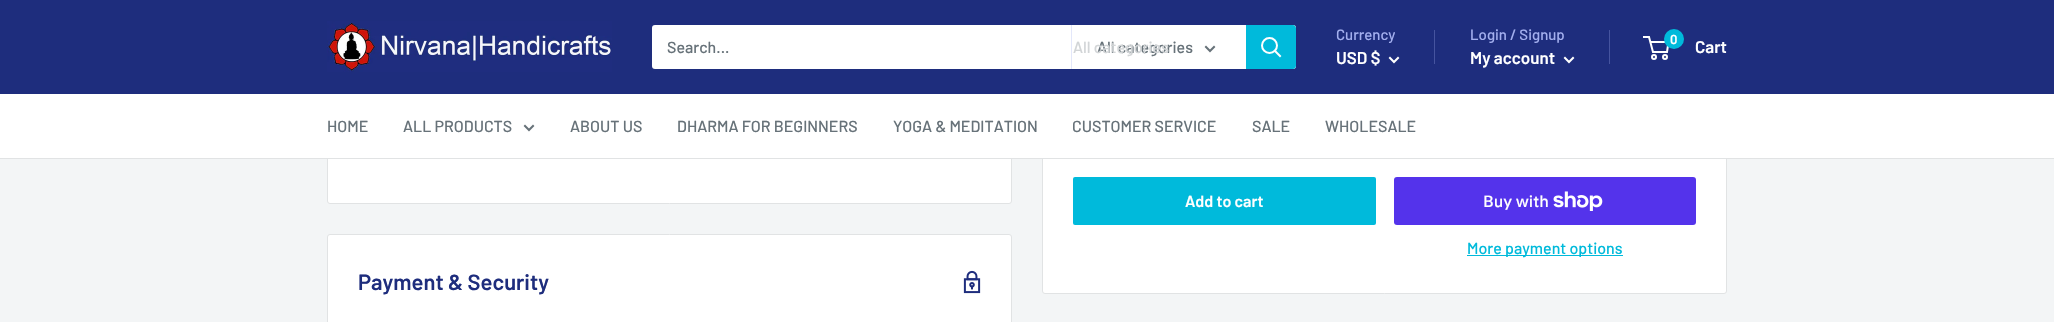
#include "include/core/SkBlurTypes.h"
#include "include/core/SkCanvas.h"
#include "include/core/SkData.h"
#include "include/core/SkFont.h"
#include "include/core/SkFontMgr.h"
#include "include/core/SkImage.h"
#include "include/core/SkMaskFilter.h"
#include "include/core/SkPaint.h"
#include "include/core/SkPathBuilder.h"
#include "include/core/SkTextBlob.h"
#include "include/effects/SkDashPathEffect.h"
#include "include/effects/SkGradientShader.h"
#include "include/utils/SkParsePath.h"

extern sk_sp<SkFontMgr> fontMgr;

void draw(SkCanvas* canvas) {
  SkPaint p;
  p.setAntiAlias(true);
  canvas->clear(SkColorSetRGB(243, 245, 246));
  p.setColor(SK_ColorWHITE);
  canvas->drawRoundRect(SkRect::MakeLTRB(1042.5f, -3.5f, 1726.5f, 293.5f), 2.5f, 2.5f, p);
  p.setStyle(SkPaint::kStroke_Style);
  p.setStrokeWidth(1);
  p.setColor(SkColorSetRGB(225, 227, 228));
  canvas->drawRoundRect(SkRect::MakeLTRB(1042.5f, -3.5f, 1726.5f, 293.5f), 2.5f, 2.5f, p);
  p.setStyle(SkPaint::kFill_Style);
  p.setColor(SkColorSetRGB(30, 45, 125));
  canvas->drawRect(SkRect::MakeLTRB(0, 0, 2054, 94), p);
  canvas->drawImageRect(SkImages::DeferredFromEncodedData(SkData::MakeFromFileName("images/1.png")), SkRect::MakeLTRB(327, 21, 612, 72), SkSamplingOptions());
  p.setColor(SK_ColorWHITE);
  canvas->drawRoundRect(SkRect::MakeLTRB(652, 25, 1296, 69), 3, 3, p);
  p.setColor(SkColorSetRGB(227, 231, 250));
  canvas->drawRect(SkRect::MakeLTRB(1071, 25, 1072, 69), p);
  p.setStyle(SkPaint::kStroke_Style);
  p.setStrokeWidth(2);
  p.setStrokeCap(SkPaint::kSquare_Cap);
  p.setColor(SkColorSetRGB(103, 114, 121));
  canvas->drawPath(SkPathBuilder().moveTo(1214, 47).lineTo(1210, 51).lineTo(1206, 47).detach(), p);
  p.setStyle(SkPaint::kFill_Style);
  p.setColor(SkColorSetRGB(0, 186, 219));
  canvas->drawPath(SkPathBuilder().moveTo(1246, 25).lineTo(1293, 25).cubicTo(1294.5f, 25, 1296, 26.5f, 1296, 28).lineTo(1296, 66).cubicTo(1296, 67.5f, 1294.5f, 69, 1293, 69).lineTo(1246, 69).close().detach(), p);
  p.setStyle(SkPaint::kStroke_Style);
  p.setColor(SK_ColorWHITE);
  canvas->drawPath(SkPathBuilder().moveTo(1280, 56).lineTo(1275, 51).detach(), p);
  p.setStrokeCap(SkPaint::kButt_Cap);
  canvas->drawCircle(1269.5f, 45.5f, 7.5f, p);
  p.setStrokeCap(SkPaint::kSquare_Cap);
  canvas->drawPath(SkPathBuilder().moveTo(1398, 58).lineTo(1394, 62).lineTo(1390, 58).detach(), p);
  p.setStyle(SkPaint::kFill_Style);
  p.setColor(SkColorSetRGB(70, 84, 159));
  canvas->drawRect(SkRect::MakeLTRB(1434, 30, 1435, 64), p);
  canvas->drawRect(SkRect::MakeLTRB(1609, 30, 1610, 64), p);
  p.setStyle(SkPaint::kStroke_Style);
  p.setColor(SK_ColorWHITE);
  canvas->drawPath(SkPathBuilder().moveTo(1573, 58).lineTo(1569, 62).lineTo(1565, 58).detach(), p);
  p.setStrokeCap(SkPaint::kButt_Cap);
  canvas->drawCircle(1654, 57, 2, p);
  canvas->drawCircle(1665, 57, 2, p);
  canvas->drawPath(SkPathBuilder().moveTo(1650.5f, 42).lineTo(1668.5f, 42).lineTo(1667, 52).lineTo(1653, 52).lineTo(1649, 37).lineTo(1643, 37).detach(), p);
  p.setStyle(SkPaint::kFill_Style);
  p.setColor(SkColorSetRGB(0, 186, 219));
  canvas->drawCircle(1674, 39, 10, p);
  p.setColor(SK_ColorWHITE);
  canvas->drawRoundRect(SkRect::MakeLTRB(327.5f, 142.5f, 1011.5f, 203.5f), 2.5f, 2.5f, p);
  p.setStyle(SkPaint::kStroke_Style);
  p.setStrokeWidth(1);
  p.setColor(SkColorSetRGB(225, 227, 228));
  canvas->drawRoundRect(SkRect::MakeLTRB(327.5f, 142.5f, 1011.5f, 203.5f), 2.5f, 2.5f, p);
  p.setStyle(SkPaint::kFill_Style);
  p.setColor(SK_ColorWHITE);
  canvas->drawRect(SkRect::MakeLTRB(0, 94, 2054, 158), p);
  p.setColor(SkColorSetRGB(225, 227, 228));
  canvas->drawRect(SkRect::MakeLTRB(0, 158, 2054, 159), p);
  p.setStyle(SkPaint::kStroke_Style);
  p.setStrokeWidth(2);
  p.setStrokeCap(SkPaint::kSquare_Cap);
  p.setColor(SkColorSetRGB(103, 114, 121));
  canvas->drawPath(SkPathBuilder().moveTo(533, 126).lineTo(529, 130).lineTo(525, 126).detach(), p);
  p.setStyle(SkPaint::kFill_Style);
  p.setColor(SkColorSetRGB(0, 186, 219));
  canvas->drawRoundRect(SkRect::MakeLTRB(1073, 177, 1376, 225), 2, 2, p);
  p.setColor(SkColorSetRGB(84, 51, 235));
  canvas->drawRoundRect(SkRect::MakeLTRB(1394, 177, 1696, 225), 3, 3, p);
  canvas->drawImageRect(SkImages::DeferredFromEncodedData(SkData::MakeFromFileName("images/2.png")), SkRect::MakeLTRB(1553, 191, 1603, 211), SkSamplingOptions());
  p.setColor(SkColorSetRGB(0, 186, 219));
  canvas->drawRect(SkRect::MakeLTRB(1467, 255, 1623, 256), p);
  p.setColor(SK_ColorWHITE);
  canvas->drawRoundRect(SkRect::MakeLTRB(327.5f, 234.5f, 1011.5f, 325.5f), 2.5f, 2.5f, p);
  p.setStyle(SkPaint::kStroke_Style);
  p.setStrokeWidth(1);
  p.setStrokeCap(SkPaint::kButt_Cap);
  p.setColor(SkColorSetRGB(225, 227, 228));
  canvas->drawRoundRect(SkRect::MakeLTRB(327.5f, 234.5f, 1011.5f, 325.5f), 2.5f, 2.5f, p);
  canvas->drawImageRect(SkImages::DeferredFromEncodedData(SkData::MakeFromFileName("images/3.png")), SkRect::MakeLTRB(963, 270, 981, 294), SkSamplingOptions());
  SkFont font1(fontMgr->matchFamilyStyle("Barlow", SkFontStyle(500, SkFontStyle::kNormal_Width, SkFontStyle::kUpright_Slant)), 16);
  font1.setSubpixel(true);
  p.setStyle(SkPaint::kFill_Style);
  p.setColor(SkColorSetRGB(103, 114, 121));
  canvas->drawString("Search...", 667, 53, font1, p);
  canvas->drawString("All categories", 1097, 53, font1, p);
  p.setColor(SkColorSetRGB(210, 213, 215));
  canvas->drawString("All categories", 1073, 53, font1, p);
  SkFont font2(fontMgr->matchFamilyStyle("Barlow", SkFontStyle(500, SkFontStyle::kNormal_Width, SkFontStyle::kUpright_Slant)), 15);
  font2.setSubpixel(true);
  p.setColor(SkColorSetRGB(163, 175, 239));
  canvas->drawString("Currency", 1336, 40, font2, p);
  SkFont font3(fontMgr->matchFamilyStyle("Barlow", SkFontStyle(600, SkFontStyle::kNormal_Width, SkFontStyle::kUpright_Slant)), 17);
  font3.setSubpixel(true);
  p.setColor(SK_ColorWHITE);
  canvas->drawString("USD $", 1336, 64, font3, p);
  p.setColor(SkColorSetRGB(163, 175, 239));
  canvas->drawString("Login / Signup", 1470, 40, font2, p);
  p.setColor(SK_ColorWHITE);
  canvas->drawString("My account", 1470, 64, font3, p);
  SkFont font4(fontMgr->matchFamilyStyle("Barlow", SkFontStyle(600, SkFontStyle::kNormal_Width, SkFontStyle::kUpright_Slant)), 13);
  font4.setSubpixel(true);
  canvas->drawString("0", 1670, 44, font4, p);
  canvas->drawString("Cart", 1695, 53, font3, p);
  p.setColor(SkColorSetRGB(103, 114, 121));
  canvas->drawString("HOME", 327, 132, font1, p);
  canvas->drawString("ALL PRODUCTS", 403, 132, font1, p);
  canvas->drawString("ABOUT US", 570, 132, font1, p);
  canvas->drawString("DHARMA FOR BEGINNERS", 677, 132, font1, p);
  canvas->drawString("YOGA & MEDITATION", 893, 132, font1, p);
  canvas->drawString("CUSTOMER SERVICE", 1072, 132, font1, p);
  canvas->drawString("SALE", 1252, 132, font1, p);
  canvas->drawString("WHOLESALE", 1325, 132, font1, p);
  SkFont font5(fontMgr->matchFamilyStyle("Barlow", SkFontStyle(600, SkFontStyle::kNormal_Width, SkFontStyle::kUpright_Slant)), 16);
  font5.setSubpixel(true);
  p.setColor(SK_ColorWHITE);
  canvas->drawString("Add to cart", 1185, 207, font5, p);
  SkFont font6(fontMgr->matchFamilyStyle("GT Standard", SkFontStyle(500, SkFontStyle::kNormal_Width, SkFontStyle::kUpright_Slant)), 16);
  font6.setSubpixel(true);
  canvas->drawString("Buy with", 1483, 207, font6, p);
  p.setColor(SkColorSetRGB(0, 186, 219));
  canvas->drawString("More payment options", 1467, 254, font1, p);
  SkFont font7(fontMgr->matchFamilyStyle("Barlow", SkFontStyle(600, SkFontStyle::kNormal_Width, SkFontStyle::kUpright_Slant)), 22);
  font7.setSubpixel(true);
  p.setColor(SkColorSetRGB(30, 45, 125));
  canvas->drawString("Payment & Security", 358, 290, font7, p);
}
